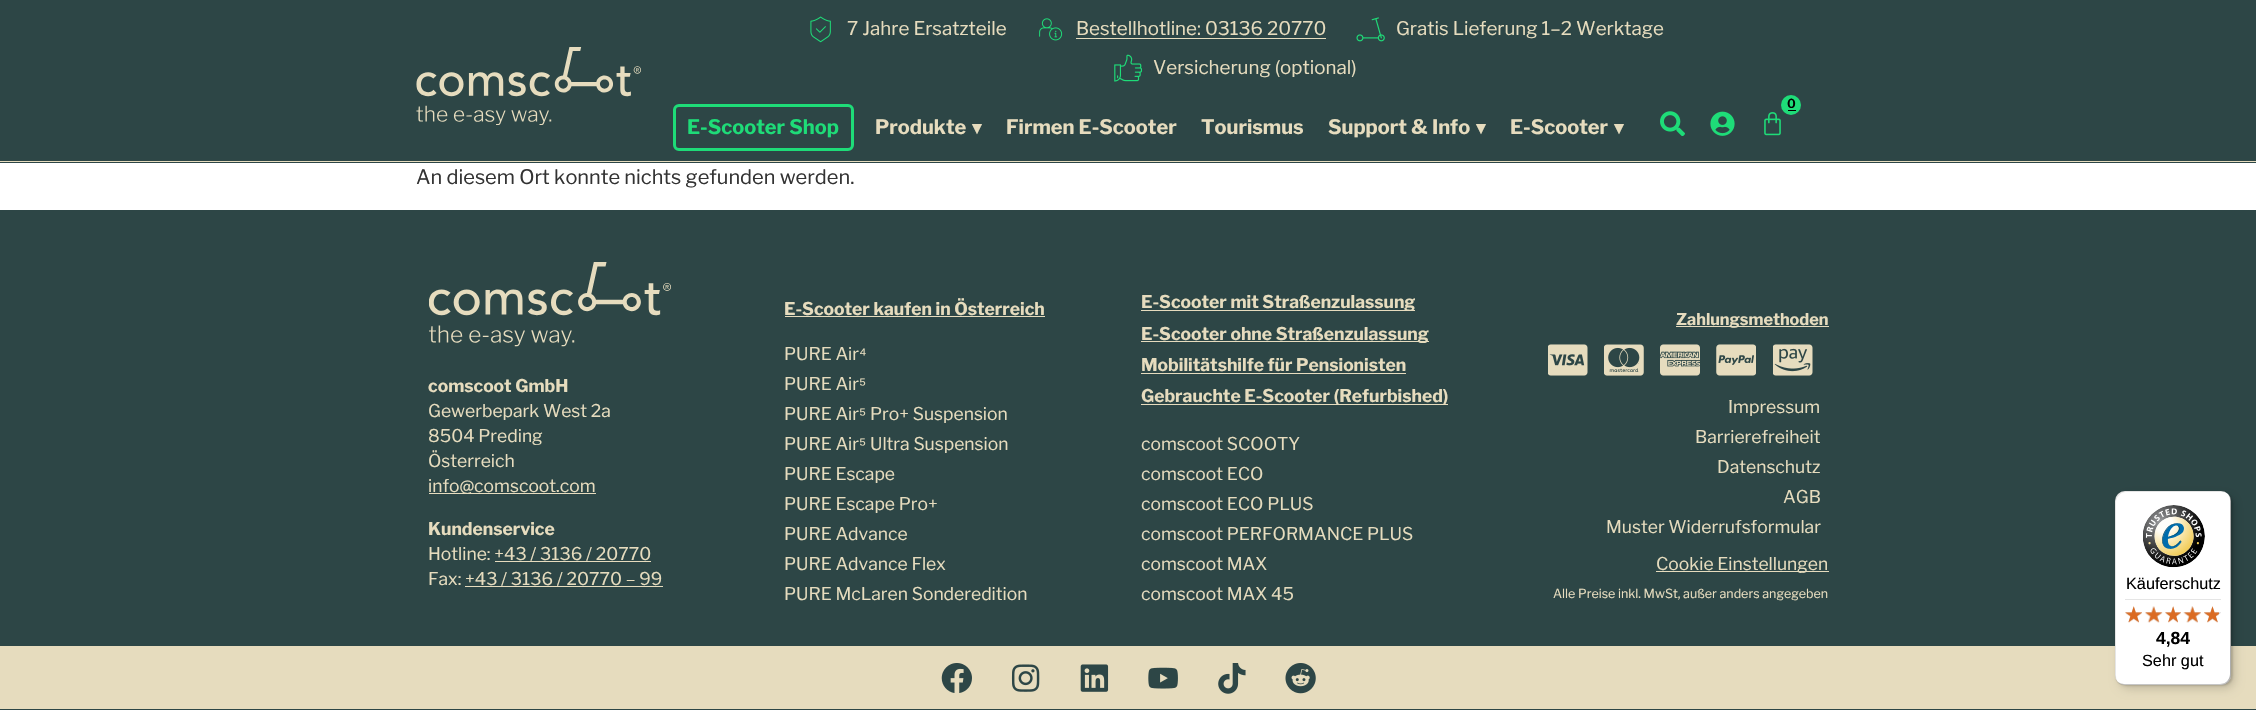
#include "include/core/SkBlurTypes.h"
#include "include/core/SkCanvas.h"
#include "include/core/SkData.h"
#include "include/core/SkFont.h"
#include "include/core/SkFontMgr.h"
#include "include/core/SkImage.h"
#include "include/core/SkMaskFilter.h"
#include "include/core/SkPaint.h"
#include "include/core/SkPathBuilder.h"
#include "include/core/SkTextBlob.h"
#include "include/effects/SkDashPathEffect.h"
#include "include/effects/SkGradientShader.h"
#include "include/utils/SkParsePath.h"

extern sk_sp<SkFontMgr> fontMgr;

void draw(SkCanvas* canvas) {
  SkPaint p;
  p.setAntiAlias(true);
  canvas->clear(SK_ColorWHITE);
  p.setColor(SkColorSetRGB(45, 70, 70));
  canvas->drawRect(SkRect::MakeLTRB(0, 0, 2256, 163), p);
  p.setColor(SkColorSetRGB(230, 220, 190));
  canvas->drawRect(SkRect::MakeLTRB(0, 161, 2256, 162), p);
  canvas->drawImageRect(SkImages::DeferredFromEncodedData(SkData::MakeFromFileName("images/1.png")), SkRect::MakeLTRB(416, 47, 641, 125), SkSamplingOptions());
  canvas->drawImageRect(SkImages::DeferredFromEncodedData(SkData::MakeFromFileName("images/2.png")), SkRect::MakeLTRB(810, 16, 831, 43), SkSamplingOptions());
  canvas->drawImageRect(SkImages::DeferredFromEncodedData(SkData::MakeFromFileName("images/3.png")), SkRect::MakeLTRB(1039, 18, 1063, 41), SkSamplingOptions());
  canvas->drawRect(SkRect::MakeLTRB(1076, 38, 1326, 39), p);
  canvas->drawImageRect(SkImages::DeferredFromEncodedData(SkData::MakeFromFileName("images/4.png")), SkRect::MakeLTRB(1356, 17, 1385, 42), SkSamplingOptions());
  canvas->drawImageRect(SkImages::DeferredFromEncodedData(SkData::MakeFromFileName("images/5.png")), SkRect::MakeLTRB(1114, 54, 1142, 82), SkSamplingOptions());
  p.setColor(SkColorSetRGB(30, 220, 120));
  canvas->drawCircle(1791, 105, 10, p);
  p.setColor(SK_ColorBLACK);
  canvas->drawRect(SkRect::MakeLTRB(1788, 110, 1796, 111), p);
  canvas->drawImageRect(SkImages::DeferredFromEncodedData(SkData::MakeFromFileName("images/6.png")), SkRect::MakeLTRB(1764, 112, 1781, 136), SkSamplingOptions());
  canvas->drawImageRect(SkImages::DeferredFromEncodedData(SkData::MakeFromFileName("images/7.png")), SkRect::MakeLTRB(1660, 111, 1685, 136), SkSamplingOptions());
  canvas->drawImageRect(SkImages::DeferredFromEncodedData(SkData::MakeFromFileName("images/8.png")), SkRect::MakeLTRB(1710, 111, 1735, 136), SkSamplingOptions());
  p.setStyle(SkPaint::kStroke_Style);
  p.setStrokeWidth(3);
  p.setColor(SkColorSetRGB(30, 220, 120));
  canvas->drawRoundRect(SkRect::MakeLTRB(674.5f, 105.5f, 852.5f, 149.5f), 4.5f, 4.5f, p);
  p.setStyle(SkPaint::kFill_Style);
  p.setColor(SkColorSetRGB(45, 70, 70));
  canvas->drawRect(SkRect::MakeLTRB(0, 210, 2256, 646), p);
  canvas->drawImageRect(SkImages::DeferredFromEncodedData(SkData::MakeFromFileName("images/9.png")), SkRect::MakeLTRB(429, 262, 671, 347), SkSamplingOptions());
  p.setColor(SkColorSetRGB(230, 220, 190));
  canvas->drawRect(SkRect::MakeLTRB(429, 493, 596, 494), p);
  canvas->drawRect(SkRect::MakeLTRB(495, 561, 651, 562), p);
  canvas->drawRect(SkRect::MakeLTRB(465, 586, 663, 587), p);
  canvas->drawRect(SkRect::MakeLTRB(785, 316, 1045, 317), p);
  canvas->drawRect(SkRect::MakeLTRB(1141, 310, 1415, 311), p);
  canvas->drawRect(SkRect::MakeLTRB(1141, 341, 1429, 342), p);
  canvas->drawRect(SkRect::MakeLTRB(1141, 373, 1406, 374), p);
  canvas->drawRect(SkRect::MakeLTRB(1141, 404, 1448, 405), p);
  canvas->drawRect(SkRect::MakeLTRB(1676, 326, 1829, 327), p);
  canvas->drawImageRect(SkImages::DeferredFromEncodedData(SkData::MakeFromFileName("images/10.png")), SkRect::MakeLTRB(1548, 344, 1588, 376), SkSamplingOptions());
  canvas->drawImageRect(SkImages::DeferredFromEncodedData(SkData::MakeFromFileName("images/11.png")), SkRect::MakeLTRB(1604, 344, 1644, 376), SkSamplingOptions());
  canvas->drawImageRect(SkImages::DeferredFromEncodedData(SkData::MakeFromFileName("images/12.png")), SkRect::MakeLTRB(1660, 344, 1700, 376), SkSamplingOptions());
  canvas->drawImageRect(SkImages::DeferredFromEncodedData(SkData::MakeFromFileName("images/13.png")), SkRect::MakeLTRB(1716, 344, 1756, 376), SkSamplingOptions());
  canvas->drawImageRect(SkImages::DeferredFromEncodedData(SkData::MakeFromFileName("images/14.png")), SkRect::MakeLTRB(1773, 344, 1813, 376), SkSamplingOptions());
  canvas->drawRect(SkRect::MakeLTRB(1656, 571, 1829, 572), p);
  canvas->drawRect(SkRect::MakeLTRB(0, 646, 2256, 709), p);
  canvas->drawImageRect(SkImages::DeferredFromEncodedData(SkData::MakeFromFileName("images/15.png")), SkRect::MakeLTRB(941, 663, 972, 693), SkSamplingOptions());
  canvas->drawImageRect(SkImages::DeferredFromEncodedData(SkData::MakeFromFileName("images/16.png")), SkRect::MakeLTRB(1011, 664, 1040, 692), SkSamplingOptions());
  canvas->drawImageRect(SkImages::DeferredFromEncodedData(SkData::MakeFromFileName("images/17.png")), SkRect::MakeLTRB(1080, 664, 1109, 692), SkSamplingOptions());
  canvas->drawImageRect(SkImages::DeferredFromEncodedData(SkData::MakeFromFileName("images/18.png")), SkRect::MakeLTRB(1148, 667, 1178, 689), SkSamplingOptions());
  canvas->drawImageRect(SkImages::DeferredFromEncodedData(SkData::MakeFromFileName("images/19.png")), SkRect::MakeLTRB(1218, 663, 1246, 694), SkSamplingOptions());
  canvas->drawImageRect(SkImages::DeferredFromEncodedData(SkData::MakeFromFileName("images/20.png")), SkRect::MakeLTRB(1285, 663, 1316, 694), SkSamplingOptions());
  p.setColor(SkColorSetRGB(45, 70, 70));
  canvas->drawRect(SkRect::MakeLTRB(0, 709, 2256, 710), p);
  p.setColor(SkColorSetARGB(38, 0, 0, 0));
  p.setMaskFilter(SkMaskFilter::MakeBlur(kNormal_SkBlurStyle, 5));
  canvas->drawRoundRect(SkRect::MakeLTRB(2119, 495, 2235, 689), 10, 10, p);
  p.setMaskFilter(nullptr);
  p.setMaskFilter(SkMaskFilter::MakeBlur(kNormal_SkBlurStyle, 1));
  canvas->drawRoundRect(SkRect::MakeLTRB(2116, 493, 2233, 686), 10, 10, p);
  p.setMaskFilter(nullptr);
  p.setColor(SK_ColorWHITE);
  canvas->drawRoundRect(SkRect::MakeLTRB(2115, 491, 2231, 685), 10, 10, p);
  p.setColor(SkColorSetARGB(26, 0, 0, 0));
  canvas->drawPath(SkPathBuilder().moveTo(2126, 492).lineTo(2222, 492).cubicTo(2225, 492, 2227, 493, 2229, 494).cubicTo(2227, 492, 2224, 491, 2221, 491).lineTo(2125, 491).cubicTo(2119, 491, 2115, 495, 2115, 501).lineTo(2115, 675).cubicTo(2115, 678, 2116, 681, 2118, 683).cubicTo(2117, 681, 2116, 679, 2116, 676).lineTo(2116, 502).cubicTo(2116, 497, 2121, 492, 2126, 492).close().detach(), p);
  p.setColor(SkColorSetARGB(51, 0, 0, 0));
  canvas->drawPath(SkPathBuilder().moveTo(2117, 682).cubicTo(2119, 684, 2122, 685, 2125, 685).lineTo(2221, 685).cubicTo(2227, 685, 2231, 681, 2231, 675).lineTo(2231, 501).cubicTo(2231, 499, 2230, 496, 2229, 495).cubicTo(2230, 496, 2230, 498, 2230, 500).lineTo(2230, 674).cubicTo(2230, 679, 2226, 684, 2220, 684).lineTo(2124, 684).cubicTo(2121, 684, 2119, 683, 2117, 682).close().detach(), p);
  p.setColor(SkColorSetARGB(51, 50, 50, 50));
  canvas->drawPath(SkPathBuilder().moveTo(2117, 681).cubicTo(2119, 684, 2122, 685, 2125, 685).lineTo(2221, 685).cubicTo(2227, 685, 2231, 681, 2231, 675).lineTo(2231, 501).cubicTo(2231, 498, 2230, 495, 2227, 493).cubicTo(2229, 495, 2230, 498, 2230, 500).lineTo(2230, 674).cubicTo(2230, 680, 2226, 684, 2220, 684).lineTo(2124, 684).cubicTo(2122, 684, 2119, 683, 2117, 681).close().detach(), p);
  p.setColor(SkColorSetARGB(77, 255, 255, 255));
  canvas->drawPath(SkPathBuilder().moveTo(2117, 681).cubicTo(2119, 684, 2122, 685, 2125, 685).lineTo(2221, 685).cubicTo(2227, 685, 2231, 681, 2231, 675).lineTo(2231, 674).cubicTo(2231, 680, 2226, 684, 2221, 684).lineTo(2124, 684).cubicTo(2122, 684, 2119, 683, 2117, 681).close().detach(), p);
  canvas->drawImageRect(SkImages::DeferredFromEncodedData(SkData::MakeFromFileName("images/21.png")), SkRect::MakeLTRB(2143, 505, 2205, 568), SkSamplingOptions());
  p.setColor(SkColorSetRGB(229, 229, 229));
  canvas->drawRect(SkRect::MakeLTRB(2125, 599, 2221, 600), p);
  canvas->drawImageRect(SkImages::DeferredFromEncodedData(SkData::MakeFromFileName("images/22.png")), SkRect::MakeLTRB(2125, 607, 2142, 622), SkSamplingOptions());
  canvas->drawImageRect(SkImages::DeferredFromEncodedData(SkData::MakeFromFileName("images/23.png")), SkRect::MakeLTRB(2145, 606, 2162, 623), SkSamplingOptions());
  canvas->drawImageRect(SkImages::DeferredFromEncodedData(SkData::MakeFromFileName("images/24.png")), SkRect::MakeLTRB(2165, 607, 2181, 622), SkSamplingOptions());
  canvas->drawImageRect(SkImages::DeferredFromEncodedData(SkData::MakeFromFileName("images/25.png")), SkRect::MakeLTRB(2183, 606, 2201, 623), SkSamplingOptions());
  canvas->drawImageRect(SkImages::DeferredFromEncodedData(SkData::MakeFromFileName("images/26.png")), SkRect::MakeLTRB(2204, 607, 2221, 622), SkSamplingOptions());
  canvas->drawImageRect(SkImages::DeferredFromEncodedData(SkData::MakeFromFileName("images/27.png")), SkRect::MakeLTRB(2125, 606, 2142, 623), SkSamplingOptions());
  canvas->drawImageRect(SkImages::DeferredFromEncodedData(SkData::MakeFromFileName("images/28.png")), SkRect::MakeLTRB(2145, 606, 2163, 623), SkSamplingOptions());
  canvas->drawImageRect(SkImages::DeferredFromEncodedData(SkData::MakeFromFileName("images/29.png")), SkRect::MakeLTRB(2165, 606, 2181, 623), SkSamplingOptions());
  canvas->drawImageRect(SkImages::DeferredFromEncodedData(SkData::MakeFromFileName("images/30.png")), SkRect::MakeLTRB(2183, 606, 2201, 623), SkSamplingOptions());
  canvas->drawImageRect(SkImages::DeferredFromEncodedData(SkData::MakeFromFileName("images/31.png")), SkRect::MakeLTRB(2204, 606, 2219, 623), SkSamplingOptions());
  SkFont font1(fontMgr->matchFamilyStyle("Libre Franklin", SkFontStyle::Normal()), 18.75f);
  font1.setSubpixel(true);
  p.setColor(SkColorSetRGB(230, 220, 190));
  canvas->drawString("7 Jahre Ersatzteile", 847, 35, font1, p);
  canvas->drawString("Bestellhotline: 03136 20770", 1076, 35, font1, p);
  canvas->drawString("Gratis Lieferung 1–2 Werktage", 1396, 35, font1, p);
  canvas->drawString("Versicherung (optional)", 1153, 74, font1, p);
  SkFont font2(fontMgr->matchFamilyStyle("Libre Franklin", SkFontStyle(600, SkFontStyle::kNormal_Width, SkFontStyle::kUpright_Slant)), 12.5f);
  font2.setSubpixel(true);
  p.setColor(SK_ColorBLACK);
  canvas->drawString("0", 1787, 108, font2, p);
  SkFont font3(fontMgr->matchFamilyStyle("Libre Franklin", SkFontStyle::Bold()), 20);
  font3.setSubpixel(true);
  p.setColor(SkColorSetRGB(30, 220, 120));
  canvas->drawString("E-Scooter Shop", 687, 134, font3, p);
  p.setColor(SkColorSetRGB(230, 220, 190));
  canvas->drawString("Produkte", 875, 134, font3, p);
  SkFont font4(fontMgr->matchFamilyStyle("DejaVu Sans", SkFontStyle::Bold()), 18.75f);
  font4.setSubpixel(true);
  canvas->drawString("▾", 972, 134, font4, p);
  canvas->drawString("Firmen E-Scooter", 1006, 134, font3, p);
  canvas->drawString("Tourismus", 1201, 134, font3, p);
  canvas->drawString("Support & Info", 1328, 134, font3, p);
  canvas->drawString("▾", 1476, 134, font4, p);
  canvas->drawString("E-Scooter", 1510, 134, font3, p);
  canvas->drawString("▾", 1614, 134, font4, p);
  SkFont font5(fontMgr->matchFamilyStyle("Libre Franklin", SkFontStyle::Normal()), 20);
  font5.setSubpixel(true);
  p.setColor(SkColorSetRGB(51, 51, 51));
  canvas->drawString("An diesem Ort konnte nichts gefunden werden.", 416, 184, font5, p);
  SkFont font6(fontMgr->matchFamilyStyle("Libre Franklin", SkFontStyle::Bold()), 17.5f);
  font6.setSubpixel(true);
  p.setColor(SkColorSetRGB(230, 220, 190));
  canvas->drawString("comscoot GmbH", 428, 392, font6, p);
  SkFont font7(fontMgr->matchFamilyStyle("Libre Franklin", SkFontStyle::Normal()), 17.5f);
  font7.setSubpixel(true);
  canvas->drawString("Gewerbepark West 2a", 428, 417, font7, p);
  canvas->drawString("8504 Preding", 428, 442, font7, p);
  canvas->drawString("Österreich", 428, 467, font7, p);
  canvas->drawString("info@comscoot.com", 428, 492, font7, p);
  canvas->drawString("Kundenservice", 428, 535, font6, p);
  canvas->drawString("Hotline: +43 / 3136 / 20770", 428, 560, font7, p);
  canvas->drawString("Fax: +43 / 3136 / 20770 – 99", 428, 585, font7, p);
  canvas->drawString("E-Scooter kaufen in Österreich", 784, 315, font6, p);
  canvas->drawString("PURE Air", 784, 360, font7, p);
  SkFont font8(fontMgr->matchFamilyStyle("Liberation Sans", SkFontStyle::Normal()), 17.5f);
  font8.setSubpixel(true);
  canvas->drawString("⁴", 859, 360, font8, p);
  canvas->drawString("PURE Air", 784, 390, font7, p);
  canvas->drawString("⁵", 859, 390, font8, p);
  canvas->drawString("PURE Air", 784, 420, font7, p);
  canvas->drawString("⁵", 859, 420, font8, p);
  canvas->drawString("Pro+ Suspension", 870, 420, font7, p);
  canvas->drawString("PURE Air", 784, 450, font7, p);
  canvas->drawString("⁵", 859, 450, font8, p);
  canvas->drawString("Ultra Suspension", 870, 450, font7, p);
  canvas->drawString("PURE Escape", 784, 480, font7, p);
  canvas->drawString("PURE Escape Pro+", 784, 510, font7, p);
  canvas->drawString("PURE Advance", 784, 540, font7, p);
  canvas->drawString("PURE Advance Flex", 784, 570, font7, p);
  canvas->drawString("PURE McLaren Sonderedition", 784, 600, font7, p);
  canvas->drawString("E-Scooter mit Straßenzulassung", 1141, 308, font6, p);
  canvas->drawString("E-Scooter ohne Straßenzulassung", 1141, 340, font6, p);
  canvas->drawString("Mobilitätshilfe für Pensionisten", 1141, 371, font6, p);
  canvas->drawString("Gebrauchte E-Scooter (Refurbished)", 1141, 402, font6, p);
  canvas->drawString("comscoot SCOOTY", 1141, 450, font7, p);
  canvas->drawString("comscoot ECO", 1141, 480, font7, p);
  canvas->drawString("comscoot ECO PLUS", 1141, 510, font7, p);
  canvas->drawString("comscoot PERFORMANCE PLUS", 1141, 540, font7, p);
  canvas->drawString("comscoot MAX", 1141, 570, font7, p);
  canvas->drawString("comscoot MAX 45", 1141, 600, font7, p);
  SkFont font9(fontMgr->matchFamilyStyle("Libre Franklin", SkFontStyle::Bold()), 16.25f);
  font9.setSubpixel(true);
  canvas->drawString("Zahlungsmethoden", 1676, 325, font9, p);
  canvas->drawString("Impressum", 1728, 413, font7, p);
  canvas->drawString("Barrierefreiheit", 1695, 443, font7, p);
  canvas->drawString("Datenschutz", 1717, 473, font7, p);
  canvas->drawString("AGB", 1783, 503, font7, p);
  canvas->drawString("Muster Widerrufsformular", 1606, 533, font7, p);
  canvas->drawString("Cookie Einstellungen", 1656, 570, font7, p);
  SkFont font10(fontMgr->matchFamilyStyle("Libre Franklin", SkFontStyle::Normal()), 12.5f);
  font10.setSubpixel(true);
  canvas->drawString("Alle Preise inkl. MwSt, außer anders angegeben", 1553, 598, font10, p);
  SkFont font11(fontMgr->matchFamilyStyle("Liberation Sans", SkFontStyle::Normal()), 16.25f);
  font11.setSubpixel(true);
  p.setColor(SK_ColorBLACK);
  canvas->drawString("Käuferschutz", 2126, 589, font11, p);
  SkFont font12(fontMgr->matchFamilyStyle("Liberation Sans", SkFontStyle::Bold()), 17.5f);
  font12.setSubpixel(true);
  canvas->drawString("4,84", 2156, 644, font12, p);
  canvas->drawString("Sehr gut", 2142, 666, font11, p);
}
